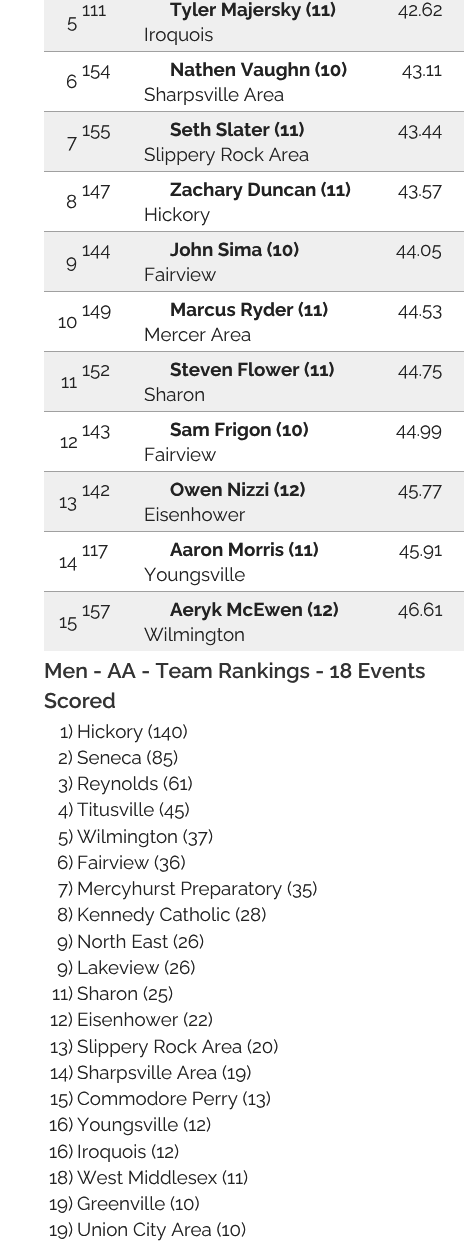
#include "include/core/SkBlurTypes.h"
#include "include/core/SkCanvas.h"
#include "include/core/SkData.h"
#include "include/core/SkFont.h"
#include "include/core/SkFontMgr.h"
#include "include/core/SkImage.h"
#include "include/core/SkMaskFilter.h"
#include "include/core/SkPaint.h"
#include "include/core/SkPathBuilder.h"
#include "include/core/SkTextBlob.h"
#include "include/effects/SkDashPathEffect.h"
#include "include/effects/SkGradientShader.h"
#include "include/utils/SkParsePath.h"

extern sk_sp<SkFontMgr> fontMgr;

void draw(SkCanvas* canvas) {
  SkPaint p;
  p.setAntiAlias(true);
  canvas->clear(SK_ColorWHITE);
  p.setColor(SkColorSetRGB(239, 239, 239));
  canvas->drawRect(SkRect::MakeLTRB(44, 0, 464, 51), p);
  p.setColor(SkColorSetRGB(160, 160, 160));
  canvas->drawRect(SkRect::MakeLTRB(44, 51, 464, 52), p);
  p.setColor(SkColorSetRGB(239, 239, 239));
  canvas->drawRect(SkRect::MakeLTRB(44, 112, 464, 171), p);
  p.setColor(SkColorSetRGB(160, 160, 160));
  canvas->drawRect(SkRect::MakeLTRB(44, 111, 464, 112), p);
  canvas->drawRect(SkRect::MakeLTRB(44, 171, 464, 172), p);
  p.setColor(SkColorSetRGB(239, 239, 239));
  canvas->drawRect(SkRect::MakeLTRB(44, 232, 464, 291), p);
  p.setColor(SkColorSetRGB(160, 160, 160));
  canvas->drawRect(SkRect::MakeLTRB(44, 231, 464, 232), p);
  canvas->drawRect(SkRect::MakeLTRB(44, 291, 464, 292), p);
  p.setColor(SkColorSetRGB(239, 239, 239));
  canvas->drawRect(SkRect::MakeLTRB(44, 352, 464, 411), p);
  p.setColor(SkColorSetRGB(160, 160, 160));
  canvas->drawRect(SkRect::MakeLTRB(44, 351, 464, 352), p);
  canvas->drawRect(SkRect::MakeLTRB(44, 411, 464, 412), p);
  p.setColor(SkColorSetRGB(239, 239, 239));
  canvas->drawRect(SkRect::MakeLTRB(44, 472, 464, 531), p);
  p.setColor(SkColorSetRGB(160, 160, 160));
  canvas->drawRect(SkRect::MakeLTRB(44, 471, 464, 472), p);
  canvas->drawRect(SkRect::MakeLTRB(44, 531, 464, 532), p);
  p.setColor(SkColorSetRGB(239, 239, 239));
  canvas->drawRect(SkRect::MakeLTRB(44, 592, 464, 651), p);
  p.setColor(SkColorSetRGB(160, 160, 160));
  canvas->drawRect(SkRect::MakeLTRB(44, 591, 464, 592), p);
  SkFont font1(fontMgr->matchFamilyStyle("Raleway", SkFontStyle::Normal()), 18.75f);
  font1.setSubpixel(true);
  p.setColor(SkColorSetRGB(34, 34, 34));
  canvas->drawString("111", 82, 16, font1, p);
  SkFont font2(fontMgr->matchFamilyStyle("Raleway", SkFontStyle::Bold()), 18.75f);
  font2.setSubpixel(true);
  canvas->drawString("Tyler Majersky (11)", 170, 16, font2, p);
  canvas->drawString("42.62", 398, 16, font1, p);
  canvas->drawString("5", 67, 28, font1, p);
  canvas->drawString("Iroquois", 144, 41, font1, p);
  canvas->drawString("154", 82, 76, font1, p);
  canvas->drawString("Nathen Vaughn (10)", 170, 76, font2, p);
  canvas->drawString("43.11", 402, 76, font1, p);
  canvas->drawString("6", 66, 88, font1, p);
  canvas->drawString("Sharpsville Area", 144, 101, font1, p);
  canvas->drawString("155", 82, 136, font1, p);
  canvas->drawString("Seth Slater (11)", 170, 136, font2, p);
  canvas->drawString("43.44", 398, 136, font1, p);
  canvas->drawString("7", 67, 148, font1, p);
  canvas->drawString("Slippery Rock Area", 144, 161, font1, p);
  canvas->drawString("147", 82, 196, font1, p);
  canvas->drawString("Zachary Duncan (11)", 170, 196, font2, p);
  canvas->drawString("43.57", 398, 196, font1, p);
  canvas->drawString("8", 66, 208, font1, p);
  canvas->drawString("Hickory", 144, 221, font1, p);
  canvas->drawString("144", 82, 256, font1, p);
  canvas->drawString("John Sima (10)", 170, 256, font2, p);
  canvas->drawString("44.05", 396, 256, font1, p);
  canvas->drawString("9", 66, 268, font1, p);
  canvas->drawString("Fairview", 144, 281, font1, p);
  canvas->drawString("149", 82, 316, font1, p);
  canvas->drawString("Marcus Ryder (11)", 170, 316, font2, p);
  canvas->drawString("44.53", 398, 316, font1, p);
  canvas->drawString("10", 58, 328, font1, p);
  canvas->drawString("Mercer Area", 144, 341, font1, p);
  canvas->drawString("152", 82, 376, font1, p);
  canvas->drawString("Steven Flower (11)", 170, 376, font2, p);
  canvas->drawString("44.75", 398, 376, font1, p);
  canvas->drawString("11", 61, 388, font1, p);
  canvas->drawString("Sharon", 144, 401, font1, p);
  canvas->drawString("143", 82, 436, font1, p);
  canvas->drawString("Sam Frigon (10)", 170, 436, font2, p);
  canvas->drawString("44.99", 396, 436, font1, p);
  canvas->drawString("12", 60, 448, font1, p);
  canvas->drawString("Fairview", 144, 461, font1, p);
  canvas->drawString("142", 82, 496, font1, p);
  canvas->drawString("Owen Nizzi (12)", 170, 496, font2, p);
  canvas->drawString("45.77", 398, 496, font1, p);
  canvas->drawString("13", 59, 508, font1, p);
  canvas->drawString("Eisenhower", 144, 521, font1, p);
  canvas->drawString("117", 82, 556, font1, p);
  canvas->drawString("Aaron Morris (11)", 170, 556, font2, p);
  canvas->drawString("45.91", 399, 556, font1, p);
  canvas->drawString("14", 59, 568, font1, p);
  canvas->drawString("Youngsville", 144, 581, font1, p);
  canvas->drawString("157", 82, 616, font1, p);
  canvas->drawString("Aeryk McEwen (12)", 170, 616, font2, p);
  canvas->drawString("46.61", 398, 616, font1, p);
  canvas->drawString("15", 59, 628, font1, p);
  canvas->drawString("Wilmington", 144, 641, font1, p);
  SkFont font3(fontMgr->matchFamilyStyle("Raleway", SkFontStyle(600, SkFontStyle::kNormal_Width, SkFontStyle::kUpright_Slant)), 21.25f);
  font3.setSubpixel(true);
  p.setColor(SkColorSetRGB(51, 51, 51));
  canvas->drawString("Men - AA - Team Rankings - 18 Events", 44, 678, font3, p);
  canvas->drawString("Scored", 44, 708, font3, p);
  p.setColor(SkColorSetRGB(34, 34, 34));
  canvas->drawString("1)", 60, 738, font1, p);
  canvas->drawString("Hickory (140)", 77, 738, font1, p);
  canvas->drawString("2)", 58, 764, font1, p);
  canvas->drawString("Seneca (85)", 77, 764, font1, p);
  canvas->drawString("3)", 58, 790, font1, p);
  canvas->drawString("Reynolds (61)", 77, 790, font1, p);
  canvas->drawString("4)", 58, 816, font1, p);
  canvas->drawString("Titusville (45)", 77, 816, font1, p);
  canvas->drawString("5)", 58, 843, font1, p);
  canvas->drawString("Wilmington (37)", 77, 843, font1, p);
  canvas->drawString("6)", 57, 869, font1, p);
  canvas->drawString("Fairview (36)", 77, 869, font1, p);
  canvas->drawString("7)", 58, 895, font1, p);
  canvas->drawString("Mercyhurst Preparatory (35)", 77, 895, font1, p);
  canvas->drawString("8)", 57, 921, font1, p);
  canvas->drawString("Kennedy Catholic (28)", 77, 921, font1, p);
  canvas->drawString("9)", 57, 948, font1, p);
  canvas->drawString("North East (26)", 77, 948, font1, p);
  canvas->drawString("9)", 57, 974, font1, p);
  canvas->drawString("Lakeview (26)", 77, 974, font1, p);
  canvas->drawString("11)", 52, 1000, font1, p);
  canvas->drawString("Sharon (25)", 77, 1000, font1, p);
  canvas->drawString("12)", 50, 1026, font1, p);
  canvas->drawString("Eisenhower (22)", 77, 1026, font1, p);
  canvas->drawString("13)", 50, 1053, font1, p);
  canvas->drawString("Slippery Rock Area (20)", 77, 1053, font1, p);
  canvas->drawString("14)", 50, 1079, font1, p);
  canvas->drawString("Sharpsville Area (19)", 77, 1079, font1, p);
  canvas->drawString("15)", 50, 1105, font1, p);
  canvas->drawString("Commodore Perry (13)", 77, 1105, font1, p);
  canvas->drawString("16)", 49, 1131, font1, p);
  canvas->drawString("Youngsville (12)", 77, 1131, font1, p);
  canvas->drawString("16)", 49, 1158, font1, p);
  canvas->drawString("Iroquois (12)", 77, 1158, font1, p);
  canvas->drawString("18)", 49, 1184, font1, p);
  canvas->drawString("West Middlesex (11)", 77, 1184, font1, p);
  canvas->drawString("19)", 49, 1210, font1, p);
  canvas->drawString("Greenville (10)", 77, 1210, font1, p);
  canvas->drawString("19)", 49, 1236, font1, p);
  canvas->drawString("Union City Area (10)", 77, 1236, font1, p);
}
